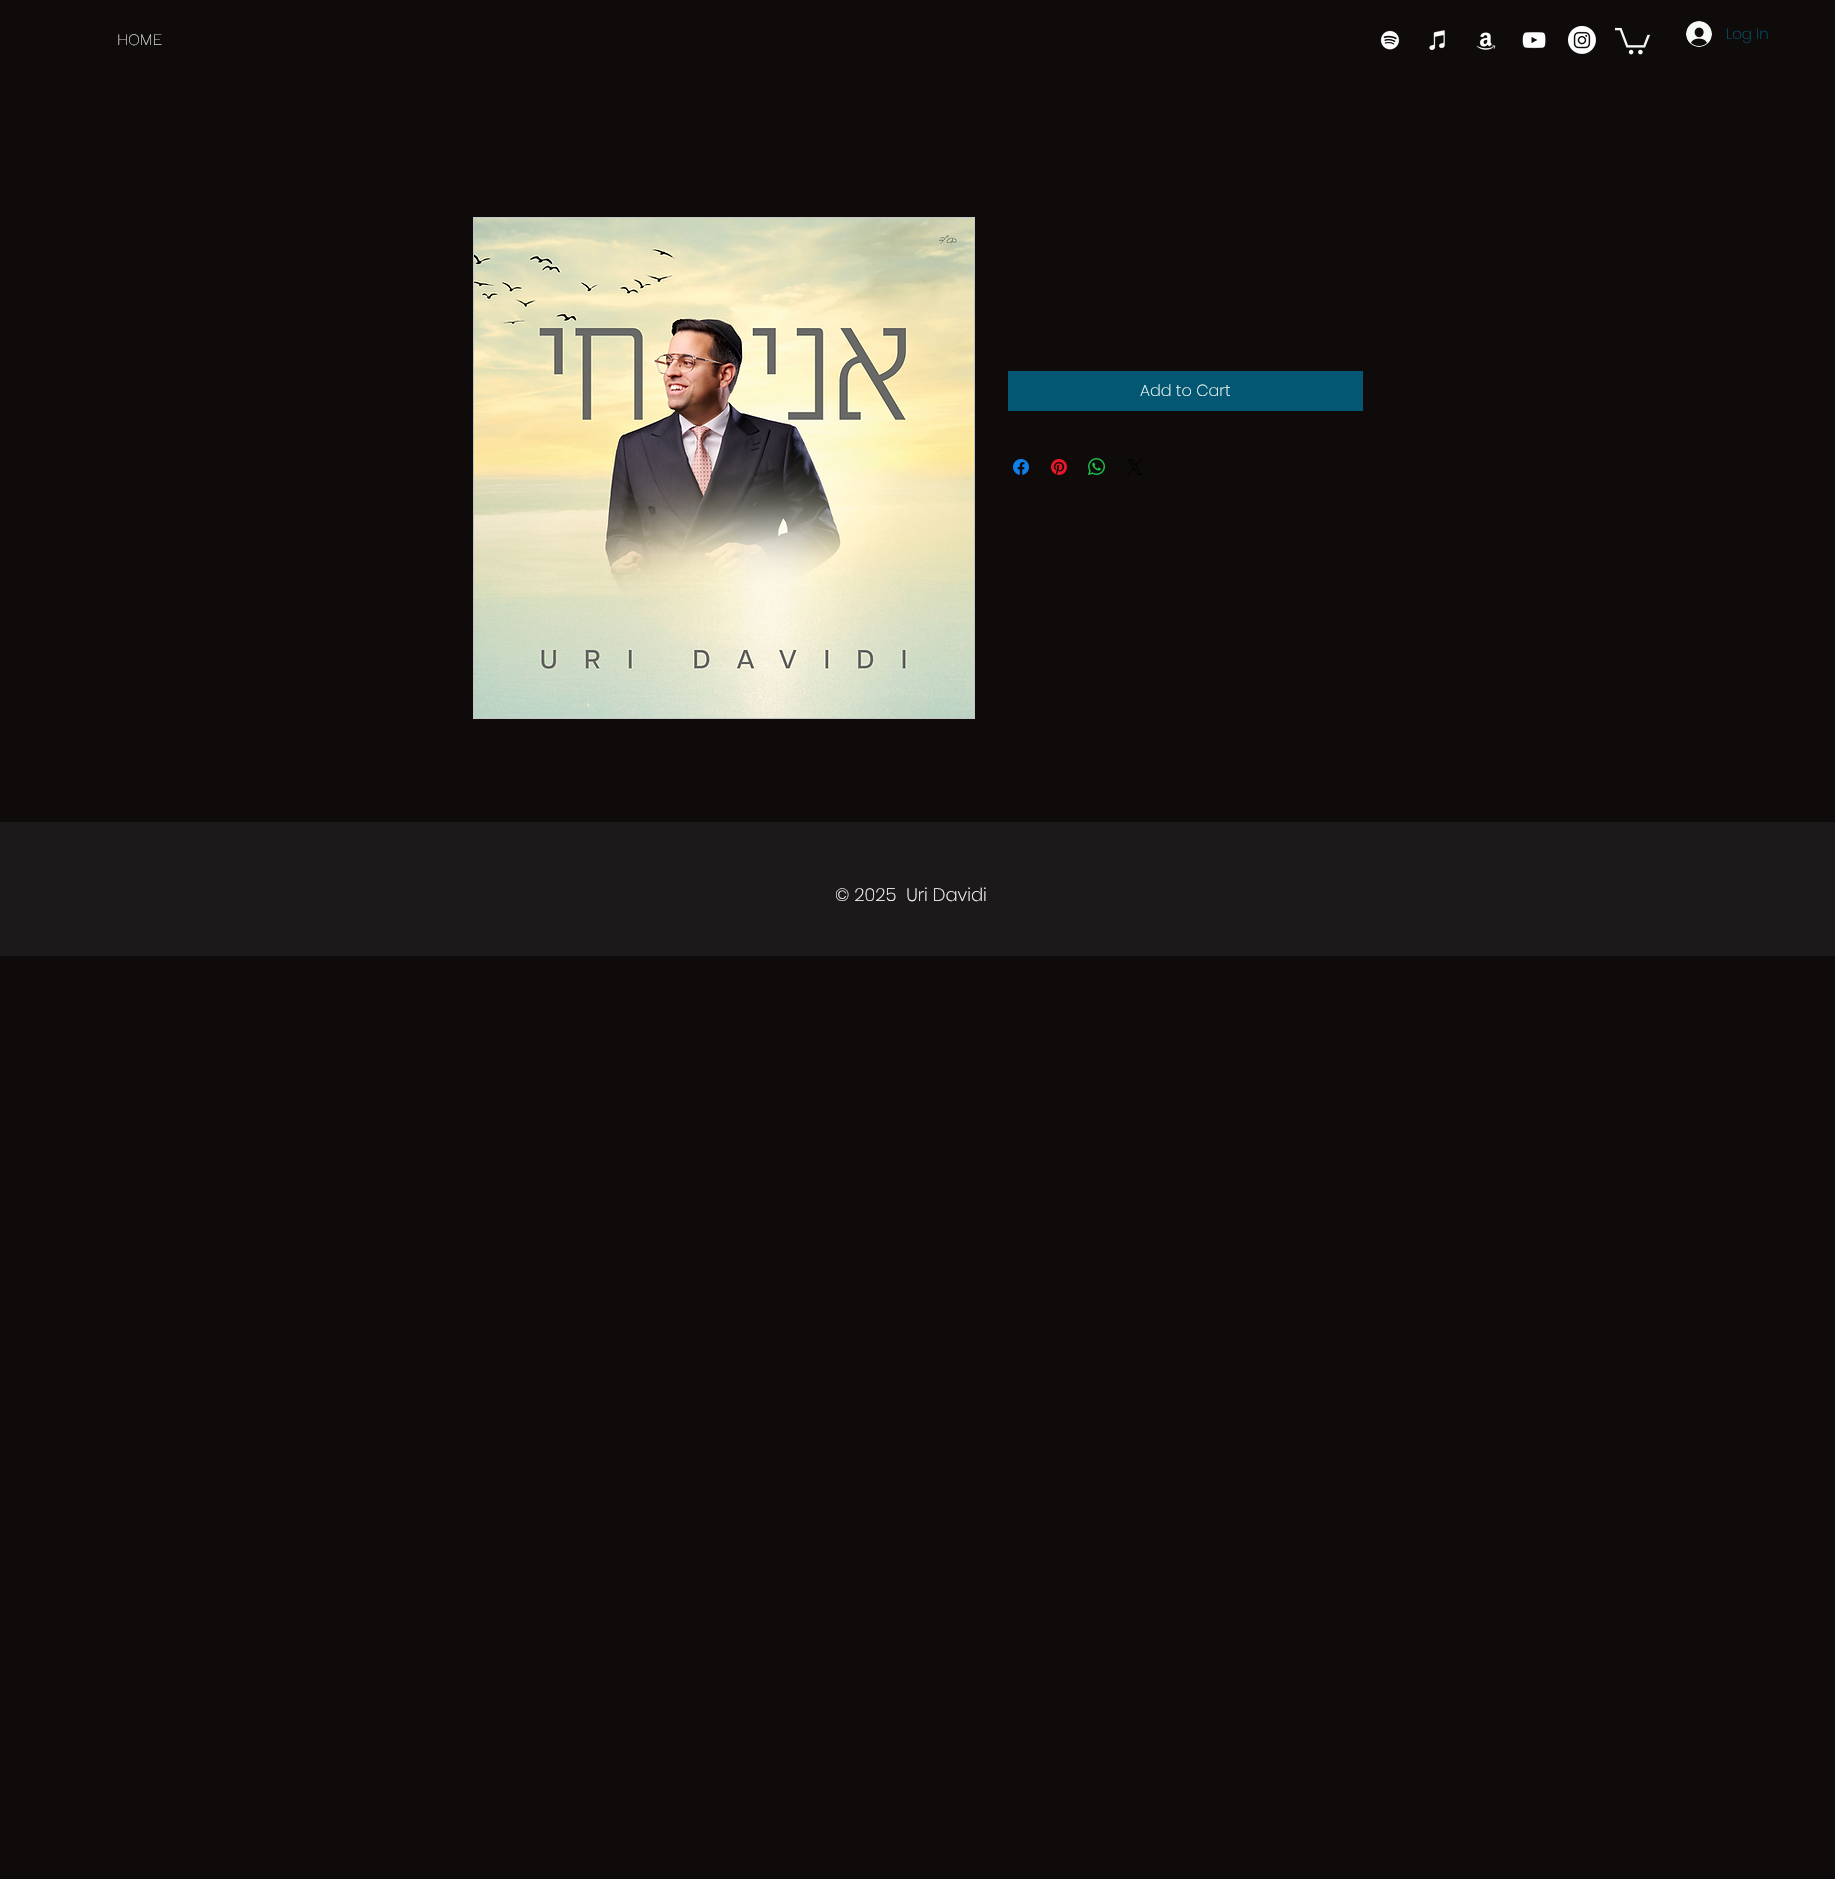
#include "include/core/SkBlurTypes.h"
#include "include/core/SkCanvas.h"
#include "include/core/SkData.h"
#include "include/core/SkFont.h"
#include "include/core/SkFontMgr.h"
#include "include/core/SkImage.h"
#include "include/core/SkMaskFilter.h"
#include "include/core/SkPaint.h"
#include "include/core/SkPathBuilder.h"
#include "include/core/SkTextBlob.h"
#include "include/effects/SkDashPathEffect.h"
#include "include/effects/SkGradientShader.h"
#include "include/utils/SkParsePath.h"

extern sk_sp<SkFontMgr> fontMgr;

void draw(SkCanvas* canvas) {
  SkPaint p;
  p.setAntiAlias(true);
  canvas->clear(SkColorSetRGB(15, 11, 11));
  canvas->drawImageRect(SkImages::DeferredFromEncodedData(SkData::MakeFromFileName("images/1.png")), SkRect::MakeLTRB(1380, 30, 1400, 50), SkSamplingOptions());
  canvas->drawImageRect(SkImages::DeferredFromEncodedData(SkData::MakeFromFileName("images/2.png")), SkRect::MakeLTRB(1429, 30, 1445, 50), SkSamplingOptions());
  canvas->drawImageRect(SkImages::DeferredFromEncodedData(SkData::MakeFromFileName("images/3.png")), SkRect::MakeLTRB(1476, 32, 1496, 50), SkSamplingOptions());
  canvas->drawImageRect(SkImages::DeferredFromEncodedData(SkData::MakeFromFileName("images/4.png")), SkRect::MakeLTRB(1522, 32, 1546, 49), SkSamplingOptions());
  canvas->drawImageRect(SkImages::DeferredFromEncodedData(SkData::MakeFromFileName("images/5.png")), SkRect::MakeLTRB(1568, 26, 1596, 54), SkSamplingOptions());
  canvas->drawImageRect(SkImages::DeferredFromEncodedData(SkData::MakeFromFileName("images/6.png")), SkRect::MakeLTRB(1615, 27, 1650, 55), SkSamplingOptions());
  canvas->drawImageRect(SkImages::DeferredFromEncodedData(SkData::MakeFromFileName("images/7.png")), SkRect::MakeLTRB(1686, 21, 1712, 47), SkSamplingOptions());
  p.setStyle(SkPaint::kStroke_Style);
  p.setStrokeWidth(1);
  p.setColor(SkColorSetRGB(197, 199, 196));
  canvas->drawRect(SkRect::MakeLTRB(473.5f, 217.5f, 974.5f, 718.5f), p);
  canvas->drawImageRect(SkImages::DeferredFromEncodedData(SkData::MakeFromFileName("images/8.png")), SkRect::MakeLTRB(474, 218, 974, 718), SkSamplingOptions());
  p.setStyle(SkPaint::kFill_Style);
  p.setColor(SkColorSetRGB(3, 87, 114));
  canvas->drawRect(SkRect::MakeLTRB(1008, 371, 1363, 411), p);
  canvas->drawImageRect(SkImages::DeferredFromEncodedData(SkData::MakeFromFileName("images/9.png")), SkRect::MakeLTRB(1013, 459, 1029, 475), SkSamplingOptions());
  canvas->drawImageRect(SkImages::DeferredFromEncodedData(SkData::MakeFromFileName("images/10.png")), SkRect::MakeLTRB(1051, 459, 1067, 475), SkSamplingOptions());
  canvas->drawImageRect(SkImages::DeferredFromEncodedData(SkData::MakeFromFileName("images/11.png")), SkRect::MakeLTRB(1088, 458, 1105, 475), SkSamplingOptions());
  canvas->drawImageRect(SkImages::DeferredFromEncodedData(SkData::MakeFromFileName("images/12.png")), SkRect::MakeLTRB(1127, 459, 1143, 475), SkSamplingOptions());
  p.setColor(SkColorSetRGB(27, 25, 25));
  canvas->drawRect(SkRect::MakeLTRB(0, 822, 1835, 956), p);
  SkFont font1(fontMgr->matchFamilyStyle("Work Sans", SkFontStyle(200, SkFontStyle::kNormal_Width, SkFontStyle::kUpright_Slant)), 16);
  font1.setSubpixel(true);
  p.setColor(SK_ColorWHITE);
  canvas->drawString("HOME", 117, 45, font1, p);
  SkFont font2(fontMgr->matchFamilyStyle("Poppins", SkFontStyle(200, SkFontStyle::kNormal_Width, SkFontStyle::kUpright_Slant)), 15);
  font2.setSubpixel(true);
  p.setColor(SkColorSetRGB(3, 87, 114));
  canvas->drawString("Log In", 1726, 39, font2, p);
  SkFont font3(fontMgr->matchFamilyStyle("Poppins", SkFontStyle(200, SkFontStyle::kNormal_Width, SkFontStyle::kUpright_Slant)), 16);
  font3.setSubpixel(true);
  p.setColor(SkColorSetRGB(246, 249, 245));
  canvas->drawString("Add to Cart", 1140, 396, font3, p);
  SkFont font4(fontMgr->matchFamilyStyle("Poppins", SkFontStyle(200, SkFontStyle::kNormal_Width, SkFontStyle::kUpright_Slant)), 18);
  font4.setSubpixel(true);
  p.setColor(SK_ColorWHITE);
  canvas->drawString("© 2025  Uri Davidi", 835, 901, font4, p);
}
